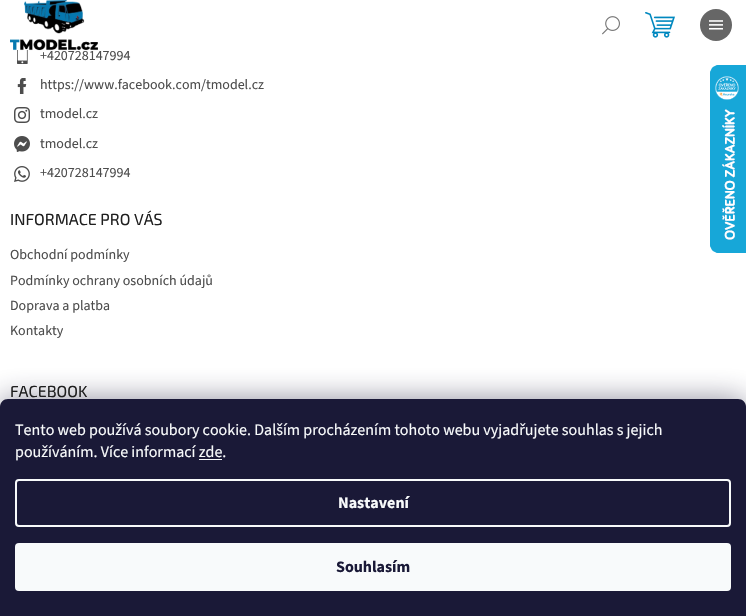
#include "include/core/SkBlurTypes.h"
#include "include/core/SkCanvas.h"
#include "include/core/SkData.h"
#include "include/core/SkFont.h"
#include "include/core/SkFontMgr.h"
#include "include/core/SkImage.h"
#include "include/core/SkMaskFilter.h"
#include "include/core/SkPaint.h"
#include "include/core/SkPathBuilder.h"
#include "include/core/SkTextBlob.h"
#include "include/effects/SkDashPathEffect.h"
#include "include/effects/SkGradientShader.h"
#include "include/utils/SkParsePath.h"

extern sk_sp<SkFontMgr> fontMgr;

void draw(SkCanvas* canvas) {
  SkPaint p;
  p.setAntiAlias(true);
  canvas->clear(SK_ColorWHITE);
  canvas->drawImageRect(SkImages::DeferredFromEncodedData(SkData::MakeFromFileName("images/2.png")), SkRect::MakeLTRB(645, 12, 675, 38), SkSamplingOptions());
  canvas->drawImageRect(SkImages::DeferredFromEncodedData(SkData::MakeFromFileName("images/3.png")), SkRect::MakeLTRB(602, 16, 620, 35), SkSamplingOptions());
  p.setColor(SkColorSetRGB(102, 102, 102));
  canvas->drawCircle(716, 25, 16, p);
  canvas->drawImageRect(SkImages::DeferredFromEncodedData(SkData::MakeFromFileName("images/4.png")), SkRect::MakeLTRB(709, 20, 723, 30), SkSamplingOptions());
  canvas->drawImageRect(SkImages::DeferredFromEncodedData(SkData::MakeFromFileName("images/5.png")), SkRect::MakeLTRB(17, 50, 28, 64), SkSamplingOptions());
  canvas->drawImageRect(SkImages::DeferredFromEncodedData(SkData::MakeFromFileName("images/6.png")), SkRect::MakeLTRB(17, 78, 27, 94), SkSamplingOptions());
  canvas->drawImageRect(SkImages::DeferredFromEncodedData(SkData::MakeFromFileName("images/7.png")), SkRect::MakeLTRB(14, 107, 30, 123), SkSamplingOptions());
  canvas->drawImageRect(SkImages::DeferredFromEncodedData(SkData::MakeFromFileName("images/8.png")), SkRect::MakeLTRB(14, 136, 30, 152), SkSamplingOptions());
  canvas->drawImageRect(SkImages::DeferredFromEncodedData(SkData::MakeFromFileName("images/9.png")), SkRect::MakeLTRB(14, 166, 30, 182), SkSamplingOptions());
  canvas->drawImageRect(SkImages::DeferredFromEncodedData(SkData::MakeFromFileName("images/10.png")), SkRect::MakeLTRB(710, 65, 746, 253), SkSamplingOptions());
  p.setColor(SkColorSetARGB(128, 27, 25, 57));
  p.setMaskFilter(SkMaskFilter::MakeBlur(kNormal_SkBlurStyle, 15));
  canvas->drawRoundRect(SkRect::MakeLTRB(0, 399, 746, 616), 8, 8, p);
  p.setMaskFilter(nullptr);
  p.setColor(SkColorSetRGB(26, 25, 55));
  canvas->drawPath(SkPathBuilder().moveTo(8, 399).lineTo(738, 399).cubicTo(742.5f, 399, 746, 402.5f, 746, 407).lineTo(746, 616).lineTo(0, 616).lineTo(0, 407).cubicTo(0, 402.5f, 3.5f, 399, 8, 399).close().detach(), p);
  p.setColor(SkColorSetRGB(248, 250, 251));
  canvas->drawRect(SkRect::MakeLTRB(199, 459, 222, 460), p);
  p.setStyle(SkPaint::kStroke_Style);
  p.setStrokeWidth(2);
  canvas->drawRoundRect(SkRect::MakeLTRB(16, 480, 730, 526), 3, 3, p);
  p.setStyle(SkPaint::kFill_Style);
  canvas->drawRoundRect(SkRect::MakeLTRB(15, 543, 731, 591), 4, 4, p);
  SkFont font1(fontMgr->matchFamilyStyle("Source Sans 3", SkFontStyle::Normal()), 14);
  font1.setSubpixel(true);
  p.setColor(SkColorSetRGB(77, 77, 77));
  canvas->drawString("+420728147994", 40, 60, font1, p);
  canvas->drawImageRect(SkImages::DeferredFromEncodedData(SkData::MakeFromFileName("images/1.png")), SkRect::MakeLTRB(10, 0, 98, 51), SkSamplingOptions());
  canvas->drawString("https://www.facebook.com/tmodel.cz", 40, 89, font1, p);
  canvas->drawString("tmodel.cz", 40, 118, font1, p);
  canvas->drawString("tmodel.cz", 40, 148, font1, p);
  canvas->drawString("+420728147994", 40, 177, font1, p);
  SkFont font2(fontMgr->matchFamilyStyle("Exo 2", SkFontStyle::Normal()), 16);
  font2.setSubpixel(true);
  p.setColor(SkColorSetRGB(31, 31, 31));
  canvas->drawString("INFORMACE PRO VÁS", 10, 225, font2, p);
  p.setColor(SkColorSetRGB(77, 77, 77));
  canvas->drawString("Obchodní podmínky", 10, 259, font1, p);
  canvas->drawString("Podmínky ochrany osobních údajů", 10, 285, font1, p);
  canvas->drawString("Doprava a platba", 10, 310, font1, p);
  canvas->drawString("Kontakty", 10, 335, font1, p);
  p.setColor(SkColorSetRGB(31, 31, 31));
  canvas->drawString("FACEBOOK", 10, 397, font2, p);
  SkFont font3(fontMgr->matchFamilyStyle("Source Sans 3", SkFontStyle::Normal()), 16);
  font3.setSubpixel(true);
  p.setColor(SkColorSetRGB(248, 250, 251));
  canvas->drawString("Tento web používá soubory cookie. Dalším procházením tohoto webu vyjadřujete souhlas s jejich", 15, 435, font3, p);
  canvas->drawString("používáním. Více informací zde.", 15, 457, font3, p);
  SkFont font4(fontMgr->matchFamilyStyle("Source Sans 3", SkFontStyle::Bold()), 16);
  font4.setSubpixel(true);
  canvas->drawString("Nastavení", 338, 508, font4, p);
  p.setColor(SkColorSetRGB(26, 25, 55));
  canvas->drawString("Souhlasím", 336, 572, font4, p);
}
